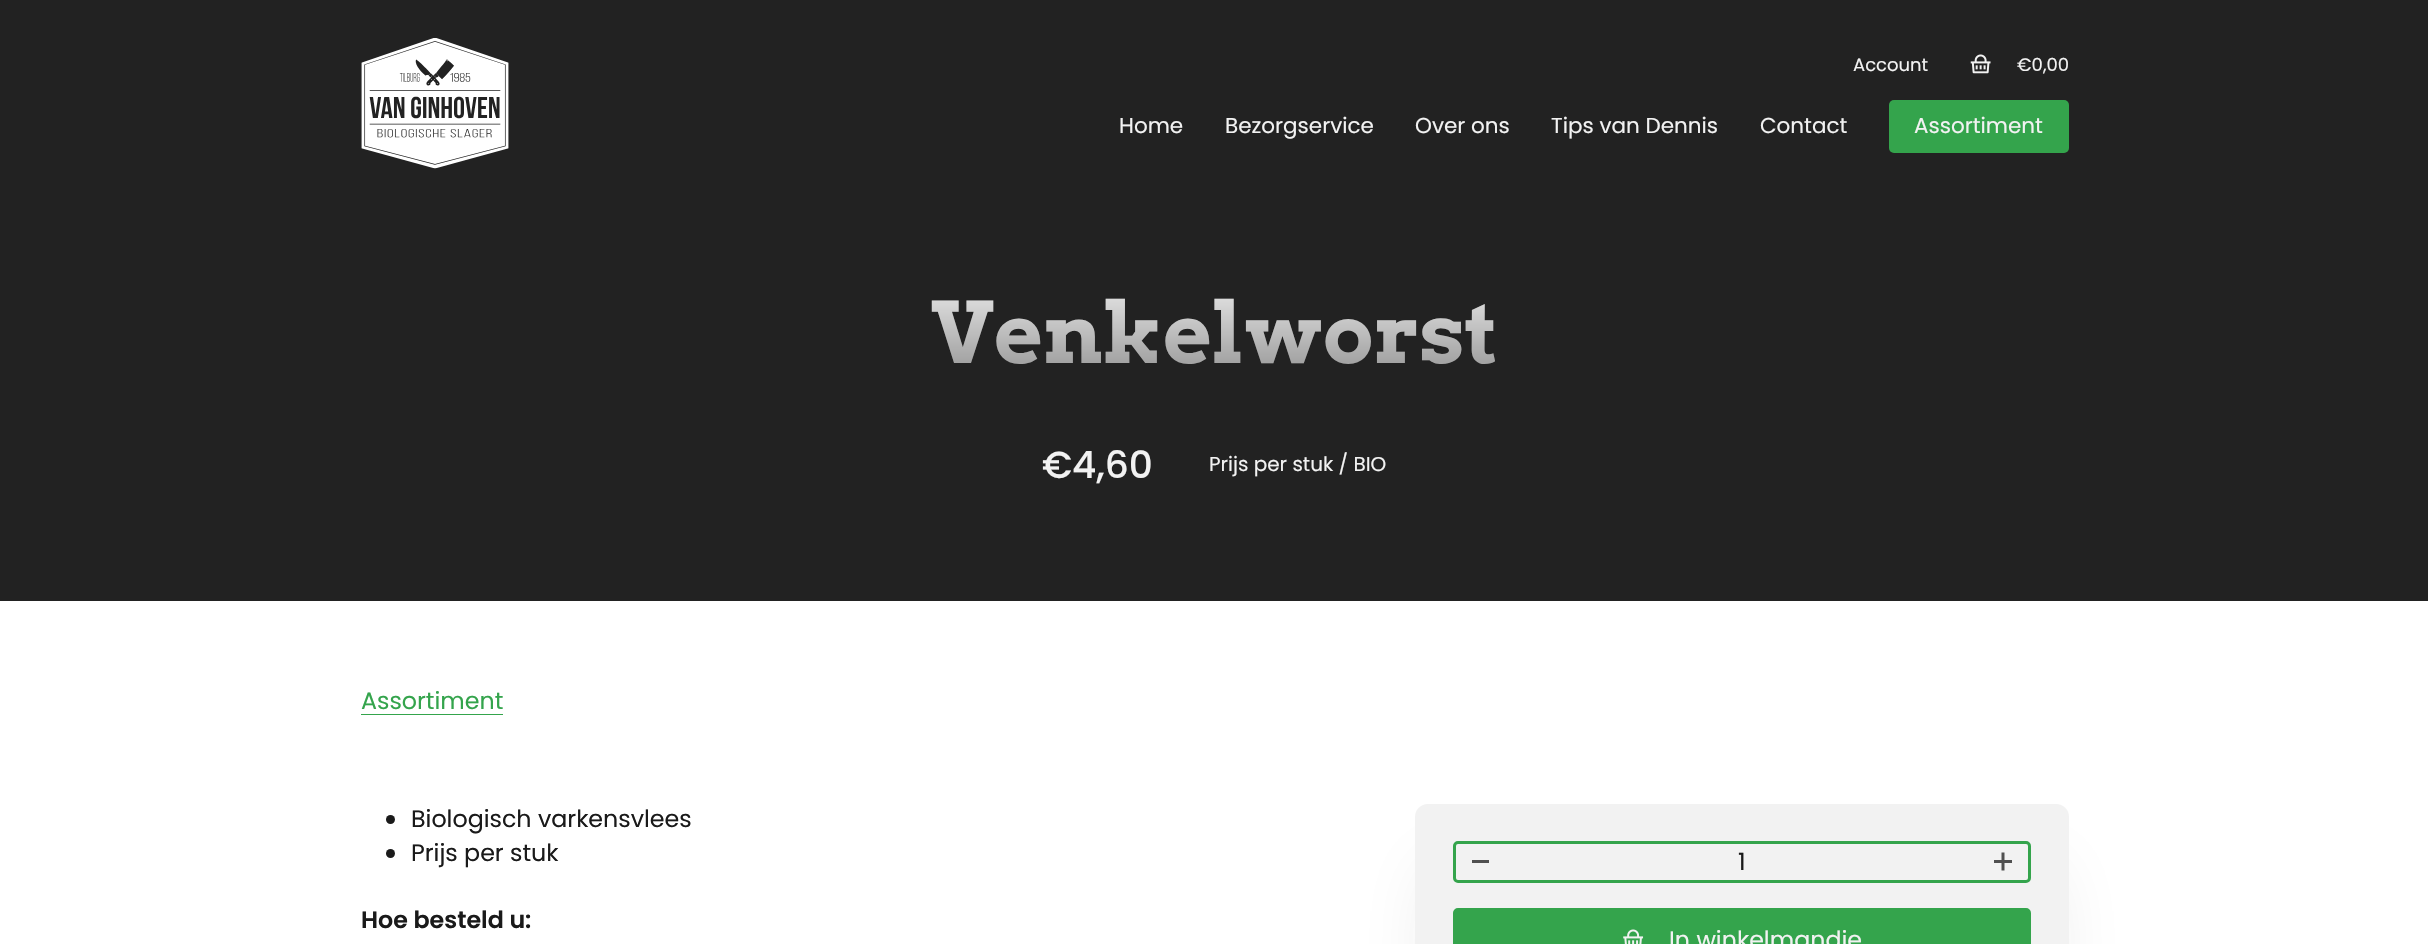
#include "include/core/SkBlurTypes.h"
#include "include/core/SkCanvas.h"
#include "include/core/SkData.h"
#include "include/core/SkFont.h"
#include "include/core/SkFontMgr.h"
#include "include/core/SkImage.h"
#include "include/core/SkMaskFilter.h"
#include "include/core/SkPaint.h"
#include "include/core/SkPathBuilder.h"
#include "include/core/SkTextBlob.h"
#include "include/effects/SkDashPathEffect.h"
#include "include/effects/SkGradientShader.h"
#include "include/utils/SkParsePath.h"

extern sk_sp<SkFontMgr> fontMgr;

void draw(SkCanvas* canvas) {
  SkPaint p;
  p.setAntiAlias(true);
  canvas->clear(SK_ColorWHITE);
  p.setColor(SkColorSetRGB(34, 34, 34));
  canvas->drawRect(SkRect::MakeLTRB(0, 0, 2428, 601), p);
  canvas->drawImageRect(SkImages::DeferredFromEncodedData(SkData::MakeFromFileName("images/1.png")), SkRect::MakeLTRB(361, 38, 509, 169), SkSamplingOptions());
  canvas->drawImageRect(SkImages::DeferredFromEncodedData(SkData::MakeFromFileName("images/2.png")), SkRect::MakeLTRB(1970, 54, 1991, 74), SkSamplingOptions());
  p.setColor(SkColorSetRGB(52, 164, 76));
  canvas->drawRoundRect(SkRect::MakeLTRB(1889, 100, 2069, 153), 5, 5, p);
  canvas->drawRect(SkRect::MakeLTRB(361, 714, 503, 715), p);
  p.setColor(SkColorSetRGB(26, 26, 26));
  canvas->drawCircle(390.5f, 819.5f, 4.5f, p);
  canvas->drawCircle(390.5f, 853.5f, 4.5f, p);
  p.setColor(SkColorSetARGB(20, 33, 33, 33));
  p.setMaskFilter(SkMaskFilter::MakeBlur(kNormal_SkBlurStyle, 37.5f));
  canvas->drawRect(SkRect::MakeLTRB(1428, 866, 2056, 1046), p);
  p.setMaskFilter(nullptr);
  p.setColor(SkColorSetRGB(242, 242, 242));
  canvas->drawRoundRect(SkRect::MakeLTRB(1415, 804, 2069, 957), 13, 13, p);
  p.setStyle(SkPaint::kStroke_Style);
  p.setStrokeWidth(3);
  p.setColor(SkColorSetRGB(52, 164, 76));
  canvas->drawRoundRect(SkRect::MakeLTRB(1454.5f, 842.5f, 2029.5f, 881.5f), 3.5f, 3.5f, p);
  p.setStyle(SkPaint::kFill_Style);
  p.setColor(SkColorSetRGB(80, 80, 80));
  canvas->drawRect(SkRect::MakeLTRB(1472, 860, 1489, 863), p);
  p.setStyle(SkPaint::kStroke_Style);
  canvas->drawPath(SkPathBuilder().moveTo(2003, 852.5f).lineTo(2003, 870.5f).detach(), p);
  p.setStyle(SkPaint::kFill_Style);
  canvas->drawRect(SkRect::MakeLTRB(1994, 860, 2012, 863), p);
  p.setColor(SkColorSetRGB(52, 164, 76));
  canvas->drawRoundRect(SkRect::MakeLTRB(1454.5f, 909.5f, 2029.5f, 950.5f), 3.5f, 3.5f, p);
  p.setStyle(SkPaint::kStroke_Style);
  canvas->drawRoundRect(SkRect::MakeLTRB(1454.5f, 909.5f, 2029.5f, 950.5f), 3.5f, 3.5f, p);
  canvas->drawImageRect(SkImages::DeferredFromEncodedData(SkData::MakeFromFileName("images/3.png")), SkRect::MakeLTRB(1623, 929, 1644, 944), SkSamplingOptions());
  SkFont font1(fontMgr->matchFamilyStyle("Poppins", SkFontStyle::Normal()), 18);
  font1.setSubpixel(true);
  p.setStyle(SkPaint::kFill_Style);
  p.setColor(SkColorSetRGB(242, 242, 242));
  canvas->drawString("Account", 1853, 71, font1, p);
  canvas->drawString("€0,00", 2017, 71, font1, p);
  SkFont font2(fontMgr->matchFamilyStyle("Poppins", SkFontStyle::Normal()), 21.5f);
  font2.setSubpixel(true);
  canvas->drawString("Home", 1119, 133, font2, p);
  canvas->drawString("Bezorgservice", 1225, 133, font2, p);
  canvas->drawString("Over ons", 1415, 133, font2, p);
  canvas->drawString("Tips van Dennis", 1551, 133, font2, p);
  canvas->drawString("Contact", 1760, 133, font2, p);
  canvas->drawString("Assortiment", 1914, 133, font2, p);
  SkFont font3(fontMgr->matchFamilyStyle("Arvo", SkFontStyle::Bold()), 84.5f);
  font3.setSubpixel(true);
  {
    const SkColor colors[] = {SkColorSetRGB(233, 233, 233), SkColorSetRGB(145, 145, 145)};
    const float stops[] = {0, 1};
    const SkPoint ends[] = {{1214, 282}, {1214, 384}};
    p.setShader(SkGradientShader::MakeLinear(ends, colors, stops, 2, SkTileMode::kClamp));
    p.setAlpha(255);
  }
  canvas->drawString("Venkelworst", 931, 363, font3, p);
  SkFont font4(fontMgr->matchFamilyStyle("Poppins", SkFontStyle(500, SkFontStyle::kNormal_Width, SkFontStyle::kUpright_Slant)), 37.5f);
  font4.setSubpixel(true);
  p.setShader(nullptr);
  p.setColor(SkColorSetRGB(242, 242, 242));
  canvas->drawString("€4,60", 1042, 478, font4, p);
  SkFont font5(fontMgr->matchFamilyStyle("Poppins", SkFontStyle::Normal()), 20);
  font5.setSubpixel(true);
  canvas->drawString("Prijs per stuk / BIO", 1209, 471, font5, p);
  SkFont font6(fontMgr->matchFamilyStyle("Poppins", SkFontStyle::Normal()), 23.75f);
  font6.setSubpixel(true);
  p.setColor(SkColorSetRGB(52, 164, 76));
  canvas->drawString("Assortiment", 361, 709, font6, p);
  p.setColor(SkColorSetRGB(26, 26, 26));
  canvas->drawString("Biologisch varkensvlees", 411, 827, font6, p);
  canvas->drawString("Prijs per stuk", 411, 861, font6, p);
  SkFont font7(fontMgr->matchFamilyStyle("Poppins", SkFontStyle(600, SkFontStyle::kNormal_Width, SkFontStyle::kUpright_Slant)), 23.75f);
  font7.setSubpixel(true);
  canvas->drawString("Hoe besteld u:", 361, 928, font7, p);
  canvas->drawString("1", 1738, 870, font6, p);
  p.setColor(SkColorSetRGB(242, 242, 242));
  canvas->drawString("In winkelmandje", 1669, 948, font6, p);
}
